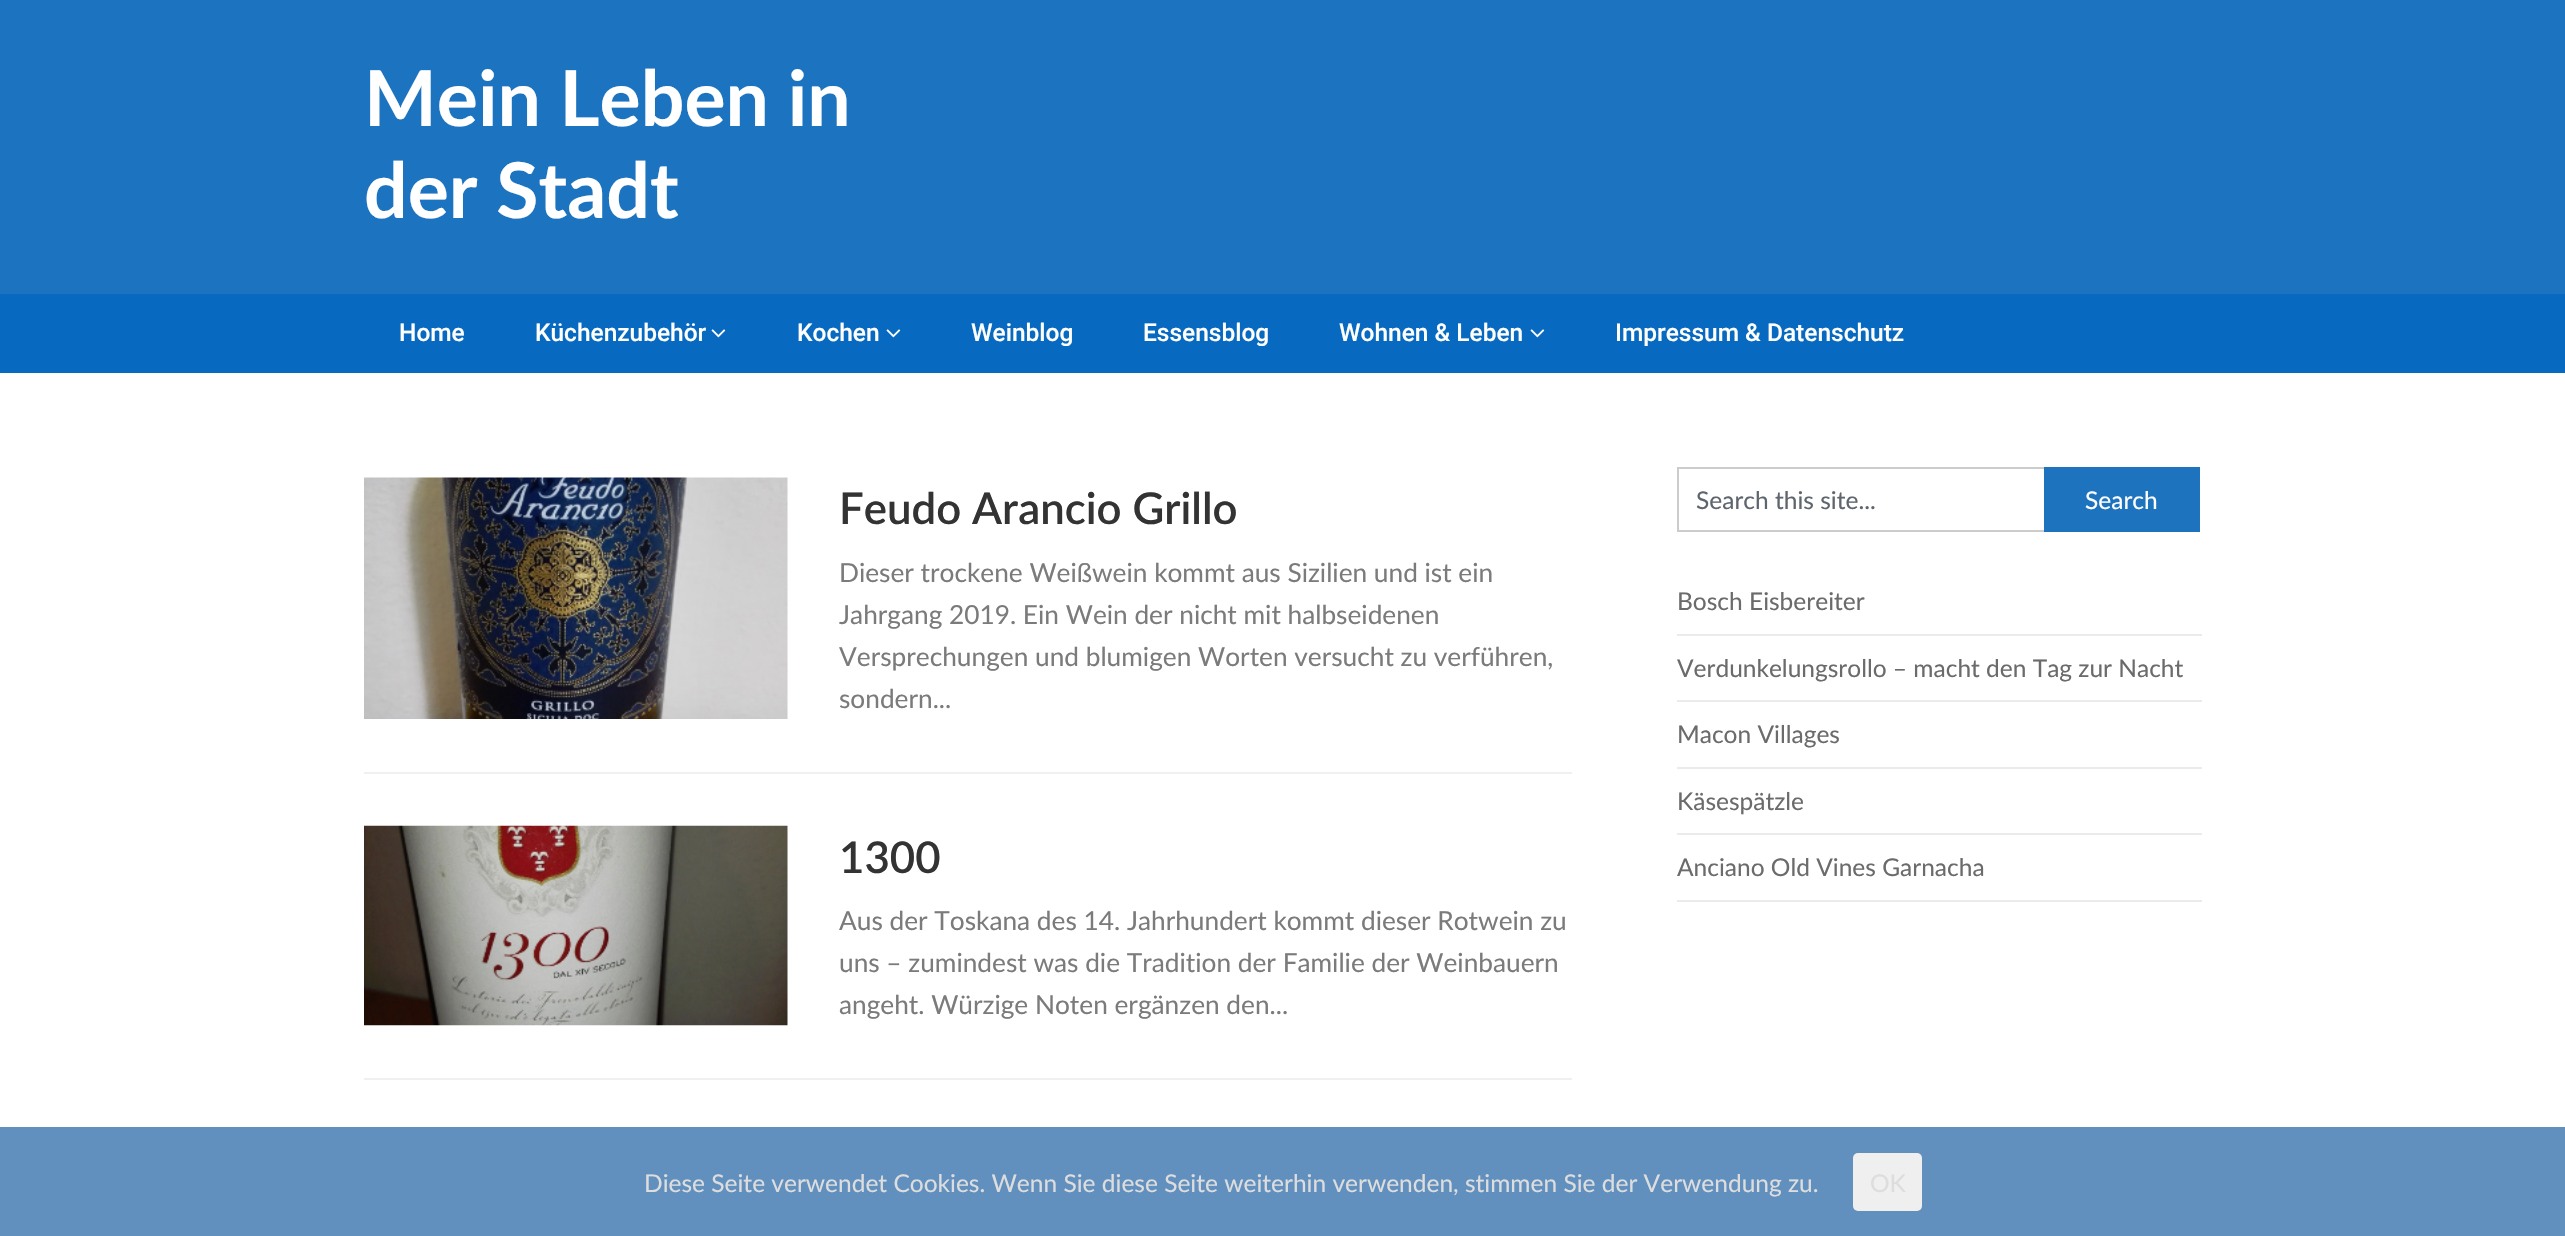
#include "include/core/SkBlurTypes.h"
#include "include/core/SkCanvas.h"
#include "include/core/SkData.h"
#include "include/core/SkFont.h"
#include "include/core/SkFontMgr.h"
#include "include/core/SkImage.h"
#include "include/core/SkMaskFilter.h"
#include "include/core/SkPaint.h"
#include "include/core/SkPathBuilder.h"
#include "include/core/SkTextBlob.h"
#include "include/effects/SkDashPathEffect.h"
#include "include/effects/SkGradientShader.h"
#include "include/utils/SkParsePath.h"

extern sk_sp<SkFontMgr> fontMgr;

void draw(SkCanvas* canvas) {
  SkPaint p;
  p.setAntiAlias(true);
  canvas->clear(SK_ColorWHITE);
  p.setColor(SkColorSetRGB(28, 115, 191));
  canvas->drawRect(SkRect::MakeLTRB(0, 0, 2565, 294), p);
  p.setColor(SkColorSetRGB(7, 105, 191));
  canvas->drawRect(SkRect::MakeLTRB(0, 294, 2565, 373), p);
  canvas->drawImageRect(SkImages::DeferredFromEncodedData(SkData::MakeFromFileName("images/1.png")), SkRect::MakeLTRB(711, 329, 726, 338), SkSamplingOptions());
  canvas->drawImageRect(SkImages::DeferredFromEncodedData(SkData::MakeFromFileName("images/1.png")), SkRect::MakeLTRB(886, 329, 901, 338), SkSamplingOptions());
  canvas->drawImageRect(SkImages::DeferredFromEncodedData(SkData::MakeFromFileName("images/1.png")), SkRect::MakeLTRB(1530, 329, 1545, 338), SkSamplingOptions());
  p.setColor(SkColorSetRGB(240, 240, 240));
  canvas->drawRect(SkRect::MakeLTRB(364, 772, 1572, 774), p);
  canvas->drawImageRect(SkImages::DeferredFromEncodedData(SkData::MakeFromFileName("images/2.png")), SkRect::MakeLTRB(364, 477, 788, 719), SkSamplingOptions());
  canvas->drawRect(SkRect::MakeLTRB(364, 1078, 1572, 1080), p);
  canvas->drawImageRect(SkImages::DeferredFromEncodedData(SkData::MakeFromFileName("images/3.png")), SkRect::MakeLTRB(364, 825, 788, 1026), SkSamplingOptions());
  p.setColor(SkColorSetRGB(204, 204, 204));
  canvas->drawRect(SkRect::MakeLTRB(1677, 467, 2044, 469), p);
  canvas->drawRect(SkRect::MakeLTRB(1677, 530, 2044, 532), p);
  canvas->drawRect(SkRect::MakeLTRB(1677, 467, 1679, 532), p);
  p.setColor(SkColorSetRGB(30, 115, 190));
  canvas->drawRect(SkRect::MakeLTRB(2044, 467, 2200, 532), p);
  p.setColor(SkColorSetRGB(235, 235, 235));
  canvas->drawRect(SkRect::MakeLTRB(1677, 634, 2202, 636), p);
  canvas->drawRect(SkRect::MakeLTRB(1677, 700, 2202, 702), p);
  canvas->drawRect(SkRect::MakeLTRB(1677, 767, 2202, 769), p);
  canvas->drawRect(SkRect::MakeLTRB(1677, 833, 2202, 835), p);
  canvas->drawRect(SkRect::MakeLTRB(1677, 900, 2202, 902), p);
  p.setColor(SkColorSetRGB(97, 144, 191));
  canvas->drawRect(SkRect::MakeLTRB(0, 1127, 2565, 1236), p);
  p.setColor(SkColorSetRGB(239, 239, 239));
  canvas->drawRoundRect(SkRect::MakeLTRB(1853, 1153, 1922, 1211), 5, 5, p);
  SkFont font1(fontMgr->matchFamilyStyle("Lato", SkFontStyle::Bold()), 77);
  font1.setSubpixel(true);
  p.setColor(SK_ColorWHITE);
  canvas->drawString("Mein Leben in", 364, 126, font1, p);
  canvas->drawString("der Stadt", 364, 218, font1, p);
  SkFont font2(fontMgr->matchFamilyStyle("Roboto", SkFontStyle(500, SkFontStyle::kNormal_Width, SkFontStyle::kUpright_Slant)), 24.5f);
  font2.setSubpixel(true);
  canvas->drawString("Home", 399, 341, font2, p);
  canvas->drawString("Küchenzubehör", 535, 341, font2, p);
  canvas->drawString("Kochen", 797, 341, font2, p);
  canvas->drawString("Weinblog", 971, 341, font2, p);
  canvas->drawString("Essensblog", 1143, 341, font2, p);
  canvas->drawString("Wohnen & Leben", 1339, 341, font2, p);
  canvas->drawString("Impressum & Datenschutz", 1615, 341, font2, p);
  SkFont font3(fontMgr->matchFamilyStyle("Lato", SkFontStyle(600, SkFontStyle::kNormal_Width, SkFontStyle::kUpright_Slant)), 43.75f);
  font3.setSubpixel(true);
  p.setColor(SkColorSetRGB(51, 51, 51));
  canvas->drawString("Feudo Arancio Grillo", 839, 524, font3, p);
  SkFont font4(fontMgr->matchFamilyStyle("Lato", SkFontStyle::Normal()), 26.25f);
  font4.setSubpixel(true);
  p.setColor(SkColorSetRGB(123, 123, 123));
  canvas->drawString("Dieser trockene Weißwein kommt aus Sizilien und ist ein", 839, 582, font4, p);
  canvas->drawString("Jahrgang 2019. Ein Wein der nicht mit halbseidenen", 839, 624, font4, p);
  canvas->drawString("Versprechungen und blumigen Worten versucht zu verführen,", 839, 666, font4, p);
  canvas->drawString("sondern...", 839, 708, font4, p);
  p.setColor(SkColorSetRGB(51, 51, 51));
  canvas->drawString("1300", 839, 873, font3, p);
  p.setColor(SkColorSetRGB(123, 123, 123));
  canvas->drawString("Aus der Toskana des 14. Jahrhundert kommt dieser Rotwein zu", 839, 930, font4, p);
  canvas->drawString("uns – zumindest was die Tradition der Familie der Weinbauern", 839, 972, font4, p);
  canvas->drawString("angeht. Würzige Noten ergänzen den...", 839, 1014, font4, p);
  SkFont font5(fontMgr->matchFamilyStyle("Lato", SkFontStyle::Normal()), 24.5f);
  font5.setSubpixel(true);
  p.setColor(SkColorSetRGB(94, 101, 109));
  canvas->drawString("Search this site...", 1696, 509, font5, p);
  p.setColor(SK_ColorWHITE);
  canvas->drawString("Search", 2085, 509, font5, p);
  p.setColor(SkColorSetRGB(107, 107, 107));
  canvas->drawString("Bosch Eisbereiter", 1677, 610, font5, p);
  canvas->drawString("Verdunkelungsrollo – macht den Tag zur Nacht", 1677, 677, font5, p);
  canvas->drawString("Macon Villages", 1677, 743, font5, p);
  canvas->drawString("Käsespätzle", 1677, 810, font5, p);
  canvas->drawString("Anciano Old Vines Garnacha", 1677, 876, font5, p);
  p.setColor(SkColorSetRGB(221, 221, 221));
  canvas->drawString("Diese Seite verwendet Cookies. Wenn Sie diese Seite weiterhin verwenden, stimmen Sie der Verwendung zu.", 644, 1192, font5, p);
  canvas->drawString("OK", 1870, 1192, font5, p);
}
